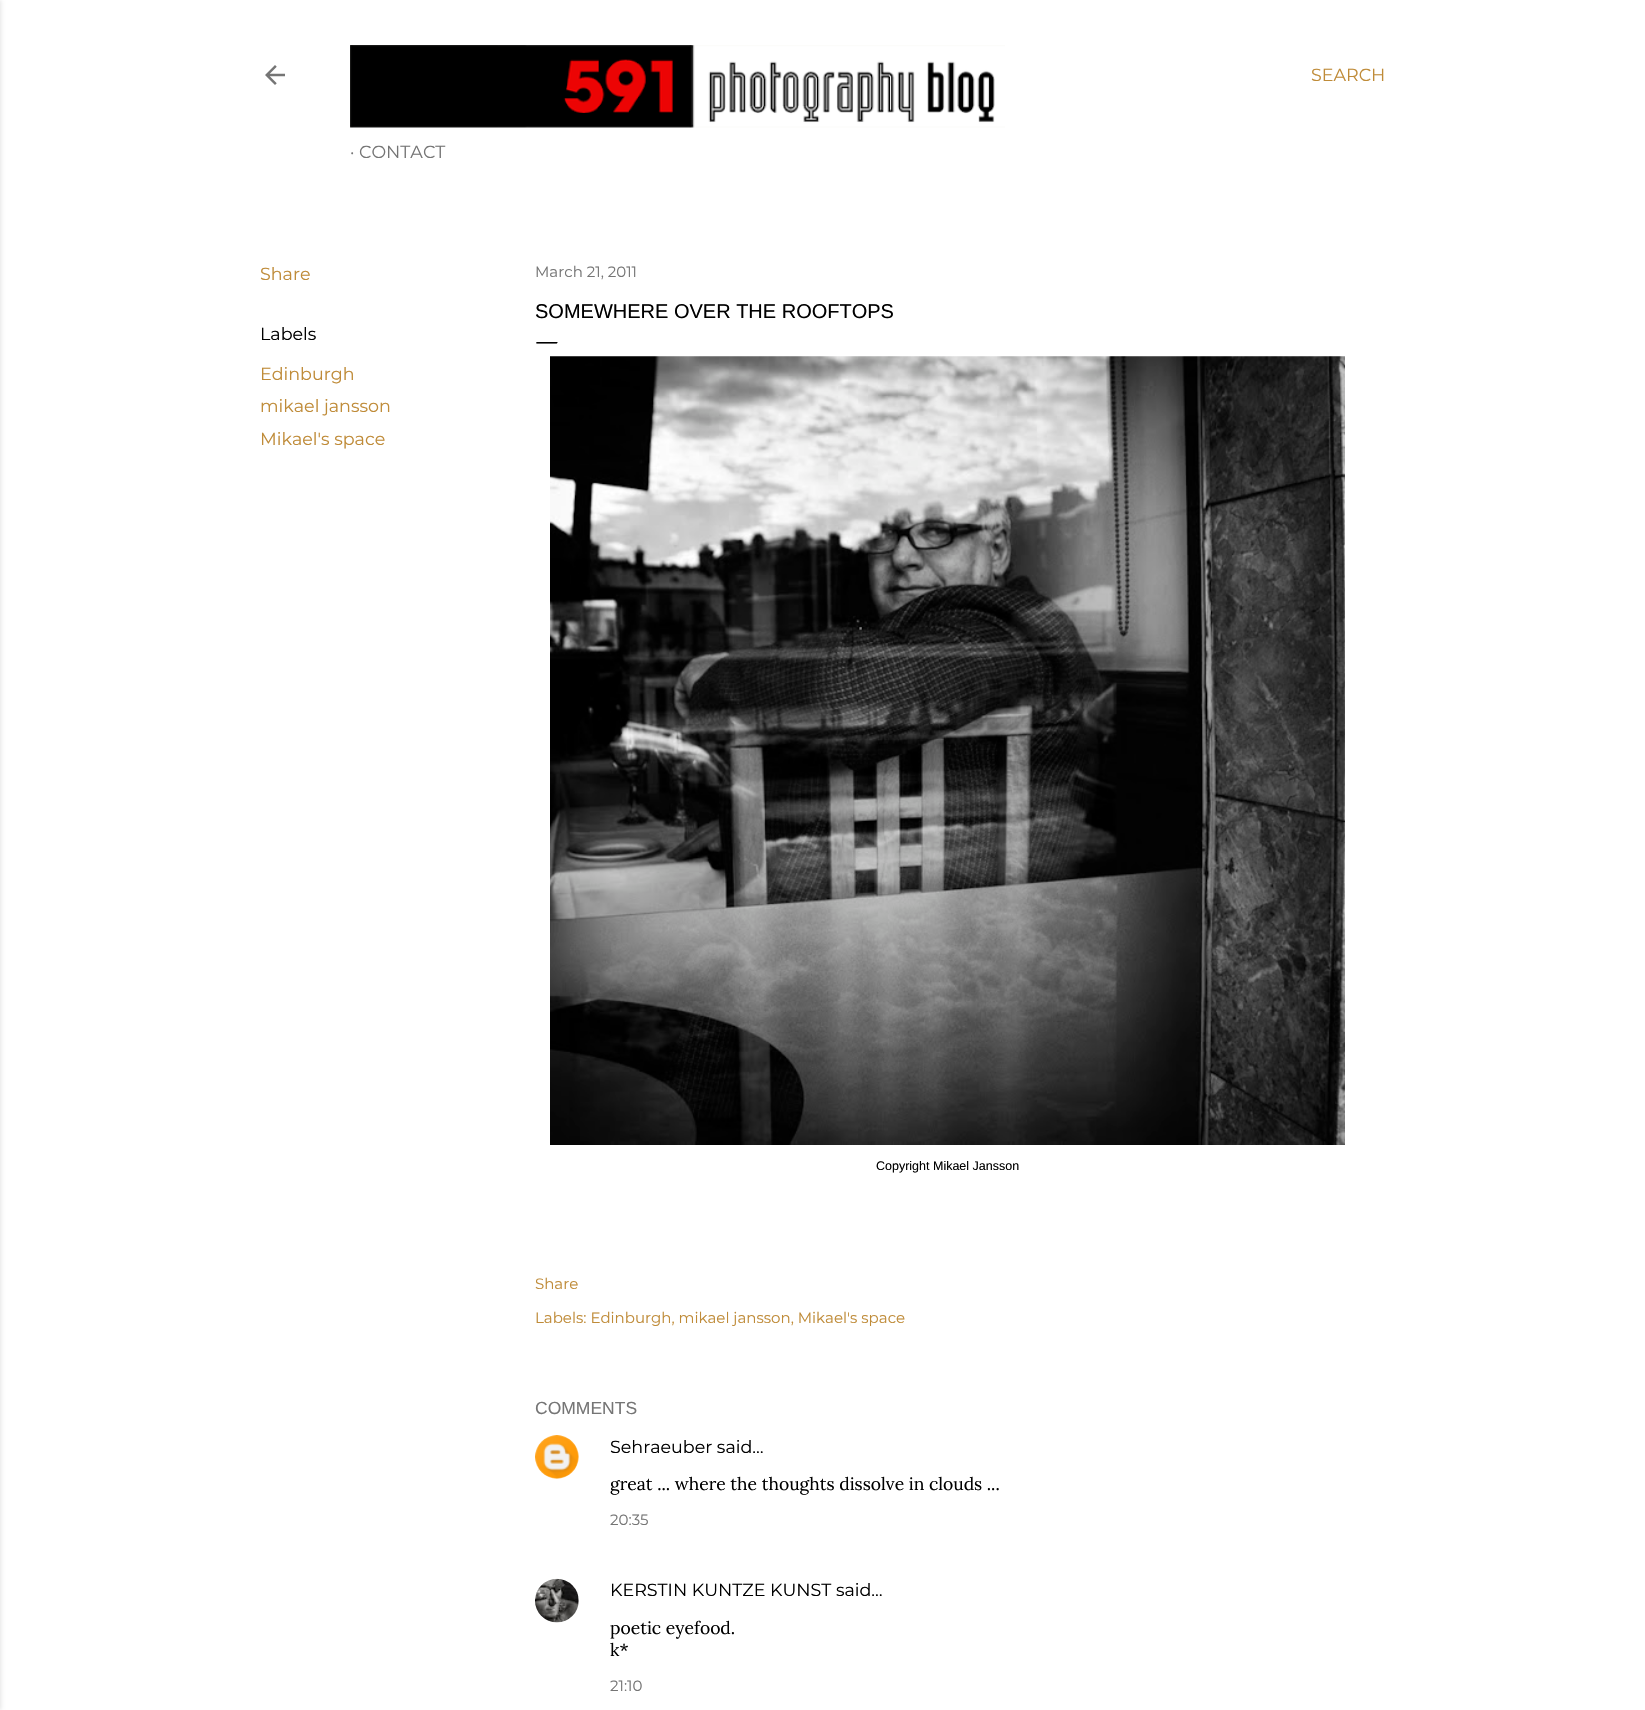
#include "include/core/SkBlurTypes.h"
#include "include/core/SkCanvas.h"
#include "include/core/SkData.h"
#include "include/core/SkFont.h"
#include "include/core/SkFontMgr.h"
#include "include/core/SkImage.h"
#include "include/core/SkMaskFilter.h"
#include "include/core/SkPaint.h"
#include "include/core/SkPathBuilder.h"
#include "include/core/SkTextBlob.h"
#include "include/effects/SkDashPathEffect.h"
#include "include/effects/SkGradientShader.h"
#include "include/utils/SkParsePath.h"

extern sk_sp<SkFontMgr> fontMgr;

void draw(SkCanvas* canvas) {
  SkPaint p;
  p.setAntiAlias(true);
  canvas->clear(SK_ColorWHITE);
  p.setColor(SkColorSetARGB(26, 0, 0, 0));
  p.setMaskFilter(SkMaskFilter::MakeBlur(kNormal_SkBlurStyle, 2));
  canvas->drawRect(SkRect::MakeLTRB(-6, 0, 1, 1710), p);
  p.setMaskFilter(nullptr);
  canvas->drawImageRect(SkImages::DeferredFromEncodedData(SkData::MakeFromFileName("images/1.png")), SkRect::MakeLTRB(265, 65, 285, 85), SkSamplingOptions());
  canvas->drawImageRect(SkImages::DeferredFromEncodedData(SkData::MakeFromFileName("images/2.png")), SkRect::MakeLTRB(350, 45, 1005, 128), SkSamplingOptions());
  canvas->drawImageRect(SkImages::DeferredFromEncodedData(SkData::MakeFromFileName("images/3.png")), SkRect::MakeLTRB(550, 356, 1345, 1145), SkSamplingOptions());
  canvas->drawImageRect(SkImages::DeferredFromEncodedData(SkData::MakeFromFileName("images/4.png")), SkRect::MakeLTRB(535, 1435, 579, 1479), SkSamplingOptions());
  canvas->drawImageRect(SkImages::DeferredFromEncodedData(SkData::MakeFromFileName("images/5.png")), SkRect::MakeLTRB(535, 1578, 579, 1623), SkSamplingOptions());
  SkFont font1(fontMgr->matchFamilyStyle("Montserrat", SkFontStyle::Normal()), 17.5f);
  font1.setSubpixel(true);
  p.setColor(SkColorSetRGB(191, 139, 56));
  canvas->drawString("SEARCH", 1311, 81, font1, p);
  p.setColor(SkColorSetRGB(117, 117, 117));
  canvas->drawString("· CONTACT", 350, 158, font1, p);
  p.setColor(SkColorSetRGB(191, 139, 56));
  canvas->drawString("Share", 260, 280, font1, p);
  p.setColor(SK_ColorBLACK);
  canvas->drawString("Labels", 260, 340, font1, p);
  p.setColor(SkColorSetRGB(191, 139, 56));
  canvas->drawString("Edinburgh", 260, 380, font1, p);
  canvas->drawString("mikael jansson", 260, 412, font1, p);
  canvas->drawString("Mikael's space", 260, 445, font1, p);
  SkFont font2(fontMgr->matchFamilyStyle("Montserrat", SkFontStyle::Normal()), 15);
  font2.setSubpixel(true);
  p.setColor(SkColorSetRGB(117, 117, 117));
  canvas->drawString("March 21, 2011", 535, 277, font2, p);
  SkFont font3(fontMgr->matchFamilyStyle("Liberation Sans", SkFontStyle::Normal()), 20);
  font3.setSubpixel(true);
  p.setColor(SK_ColorBLACK);
  canvas->drawString("SOMEWHERE OVER THE ROOFTOPS", 535, 318, font3, p);
  SkFont font4(fontMgr->matchFamilyStyle("EB Garamond", SkFontStyle::Normal()), 25);
  font4.setSubpixel(true);
  canvas->drawString("—", 535, 348, font4, p);
  SkFont font5(fontMgr->matchFamilyStyle("Liberation Sans", SkFontStyle::Normal()), 12.5f);
  font5.setSubpixel(true);
  canvas->drawString("Copyright Mikael Jansson", 876, 1170, font5, p);
  p.setColor(SkColorSetRGB(191, 139, 56));
  canvas->drawString("Share", 535, 1289, font2, p);
  canvas->drawString("Labels: Edinburgh, mikael jansson, Mikael's space", 535, 1323, font2, p);
  SkFont font6(fontMgr->matchFamilyStyle("Liberation Sans", SkFontStyle::Normal()), 17.5f);
  font6.setSubpixel(true);
  p.setColor(SkColorSetRGB(117, 117, 117));
  canvas->drawString("COMMENTS", 535, 1414, font6, p);
  p.setColor(SK_ColorBLACK);
  canvas->drawString("Sehraeuber said…", 610, 1453, font1, p);
  SkFont font7(fontMgr->matchFamilyStyle("Lora", SkFontStyle::Normal()), 17.5f);
  font7.setSubpixel(true);
  canvas->drawString("great ... where the thoughts dissolve in clouds ...", 610, 1490, font7, p);
  p.setColor(SkColorSetRGB(117, 117, 117));
  canvas->drawString("20:35", 610, 1525, font2, p);
  p.setColor(SK_ColorBLACK);
  canvas->drawString("KERSTIN KUNTZE KUNST said…", 610, 1596, font1, p);
  canvas->drawString("poetic eyefood.", 610, 1634, font7, p);
  canvas->drawString("k*", 610, 1656, font7, p);
  p.setColor(SkColorSetRGB(117, 117, 117));
  canvas->drawString("21:10", 610, 1691, font2, p);
}
